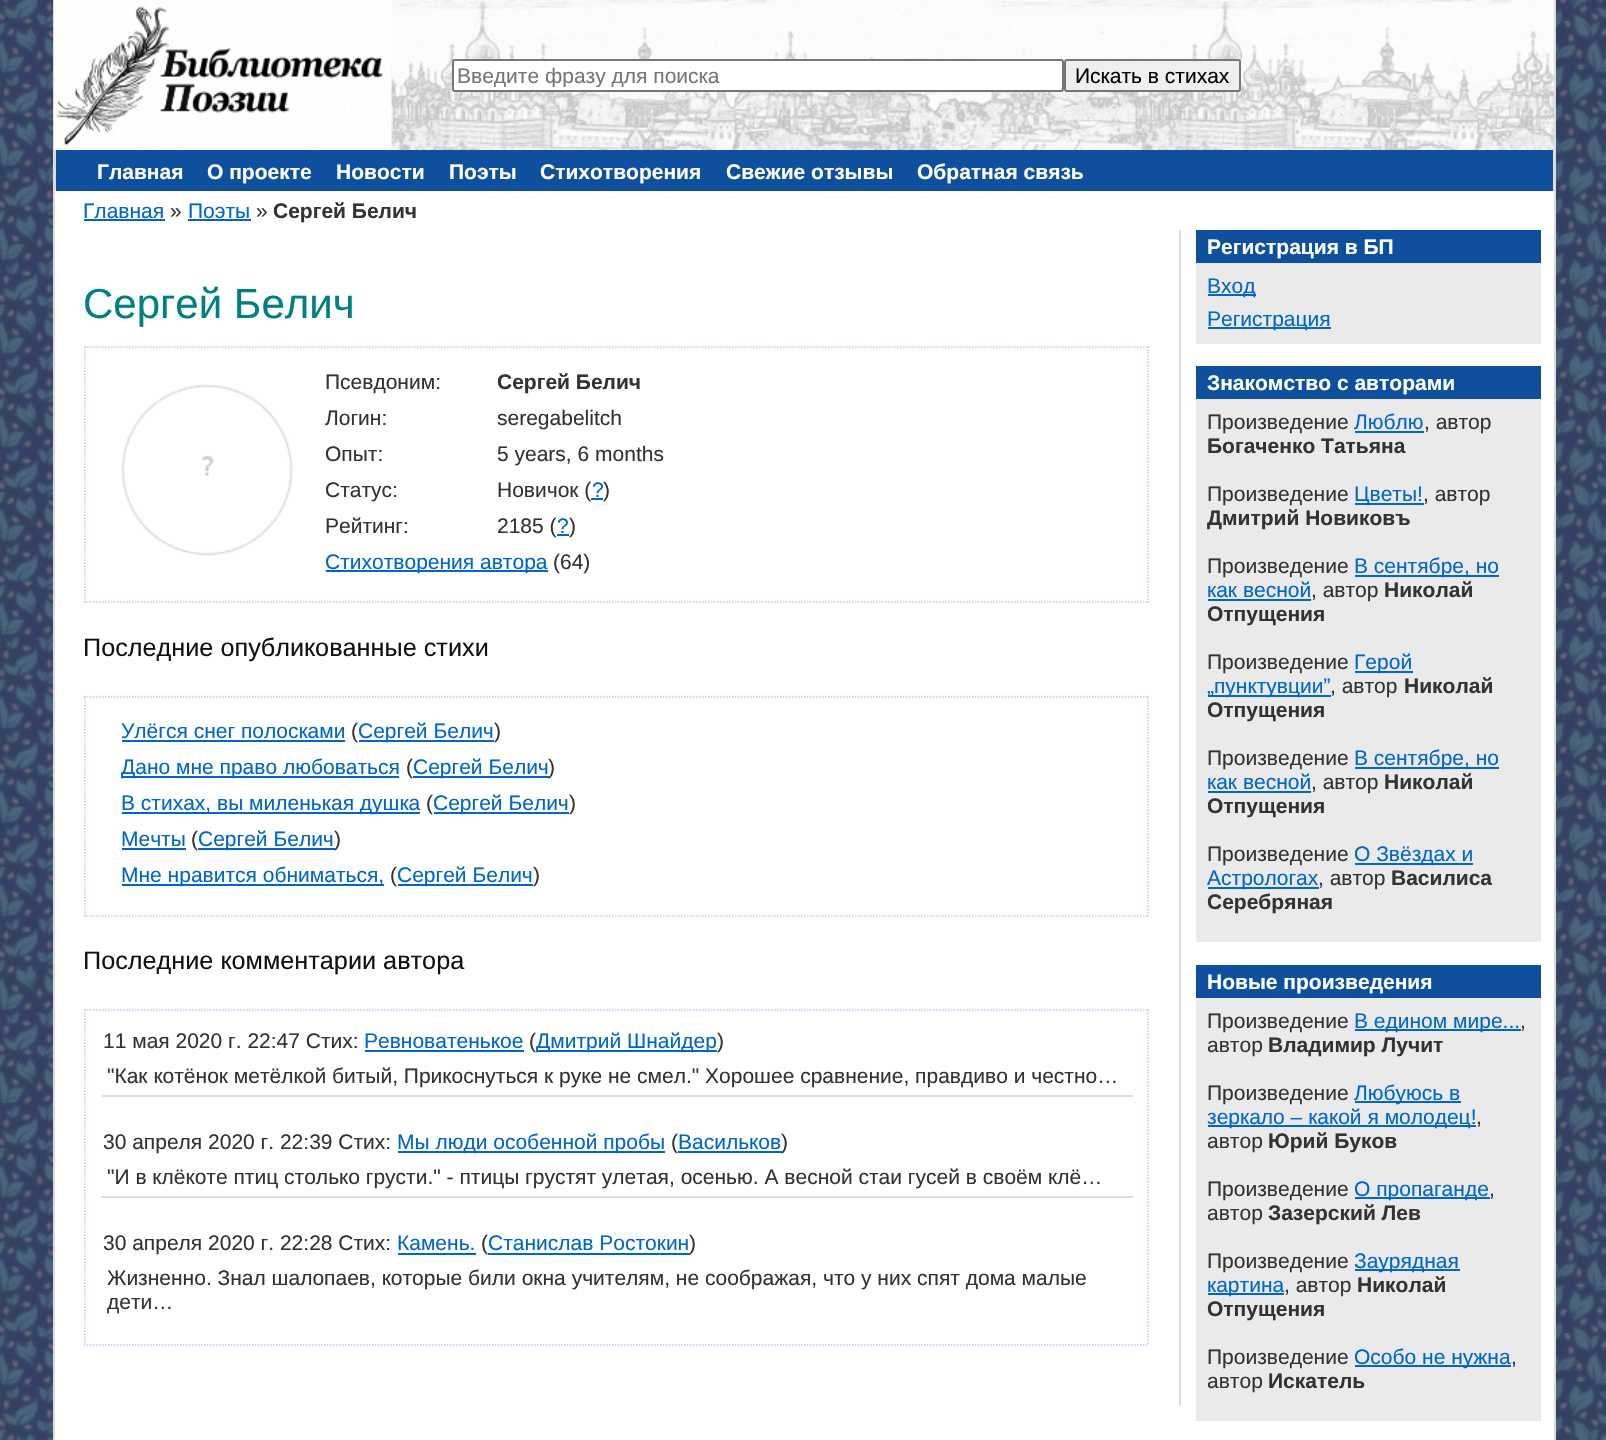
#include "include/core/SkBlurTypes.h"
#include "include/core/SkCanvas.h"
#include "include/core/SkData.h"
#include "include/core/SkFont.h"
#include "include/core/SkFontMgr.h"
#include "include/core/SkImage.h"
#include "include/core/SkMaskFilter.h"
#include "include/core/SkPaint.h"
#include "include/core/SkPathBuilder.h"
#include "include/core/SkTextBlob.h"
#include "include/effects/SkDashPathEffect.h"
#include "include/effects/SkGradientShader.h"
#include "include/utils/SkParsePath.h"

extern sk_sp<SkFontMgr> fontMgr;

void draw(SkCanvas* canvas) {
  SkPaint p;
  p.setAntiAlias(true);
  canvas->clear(SK_ColorWHITE);
  canvas->drawImageRect(SkImages::DeferredFromEncodedData(SkData::MakeFromFileName("images/1.png")), SkRect::MakeLTRB(0, 0, 1606, 1440), SkSamplingOptions());
  p.setColor(SK_ColorWHITE);
  canvas->drawRect(SkRect::MakeLTRB(55, 191, 1554, 1440), p);
  p.setColor(SkColorSetRGB(221, 221, 221));
  canvas->drawRect(SkRect::MakeLTRB(1554, 0, 1556, 1440), p);
  canvas->drawRect(SkRect::MakeLTRB(53, 0, 55, 1440), p);
  canvas->drawImageRect(SkImages::DeferredFromEncodedData(SkData::MakeFromFileName("images/3.png")), SkRect::MakeLTRB(391, 0, 1554, 150), SkSamplingOptions());
  canvas->drawImageRect(SkImages::DeferredFromEncodedData(SkData::MakeFromFileName("images/2.png")), SkRect::MakeLTRB(54, 0, 392, 150), SkSamplingOptions());
  p.setColor(SK_ColorWHITE);
  canvas->drawRoundRect(SkRect::MakeLTRB(453, 60, 1063, 91), 2, 2, p);
  p.setStyle(SkPaint::kStroke_Style);
  p.setStrokeWidth(2);
  p.setColor(SkColorSetRGB(118, 118, 118));
  canvas->drawRoundRect(SkRect::MakeLTRB(453, 60, 1063, 91), 2, 2, p);
  p.setStyle(SkPaint::kFill_Style);
  p.setColor(SkColorSetRGB(239, 239, 239));
  canvas->drawRoundRect(SkRect::MakeLTRB(1065, 60, 1240, 91), 2, 2, p);
  p.setStyle(SkPaint::kStroke_Style);
  p.setColor(SkColorSetRGB(118, 118, 118));
  canvas->drawRoundRect(SkRect::MakeLTRB(1065, 60, 1240, 91), 2, 2, p);
  p.setStyle(SkPaint::kFill_Style);
  p.setColor(SkColorSetRGB(14, 80, 158));
  canvas->drawRect(SkRect::MakeLTRB(56, 150, 1553, 191), p);
  p.setColor(SkColorSetRGB(221, 221, 221));
  canvas->drawRect(SkRect::MakeLTRB(1553, 150, 1554, 191), p);
  canvas->drawRect(SkRect::MakeLTRB(55, 150, 56, 191), p);
  p.setColor(SkColorSetRGB(0, 102, 204));
  canvas->drawRect(SkRect::MakeLTRB(84, 219, 165, 221), p);
  canvas->drawRect(SkRect::MakeLTRB(188, 219, 251, 221), p);
  p.setColor(SkColorSetRGB(221, 221, 221));
  canvas->drawRect(SkRect::MakeLTRB(1179, 230, 1181, 1406), p);
  p.setStyle(SkPaint::kStroke_Style);
  p.setStrokeWidth(1.5f);
  p.setColor(SkColorSetRGB(203, 193, 254));
  p.setPathEffect(SkDashPathEffect::Make({{1.5f, 1.5f}}, 0));
  canvas->drawPath(SkPathBuilder().moveTo(84, 347).lineTo(1149, 347).detach(), p);
  p.setPathEffect(nullptr);
  p.setPathEffect(SkDashPathEffect::Make({{1.5f, 1.5f}}, 0));
  canvas->drawPath(SkPathBuilder().moveTo(1148, 346.5f).lineTo(1148, 603).detach(), p);
  p.setPathEffect(nullptr);
  p.setPathEffect(SkDashPathEffect::Make({{1.5f, 1.5f}}, 0));
  canvas->drawPath(SkPathBuilder().moveTo(84, 602).lineTo(1149, 602).detach(), p);
  p.setPathEffect(nullptr);
  p.setPathEffect(SkDashPathEffect::Make({{1.5f, 1.5f}}, 0));
  canvas->drawPath(SkPathBuilder().moveTo(85, 346.5f).lineTo(85, 603).detach(), p);
  p.setPathEffect(nullptr);
  canvas->drawImageRect(SkImages::DeferredFromEncodedData(SkData::MakeFromFileName("images/4.png")), SkRect::MakeLTRB(121, 384, 293, 556), SkSamplingOptions());
  p.setStyle(SkPaint::kFill_Style);
  p.setColor(SkColorSetRGB(0, 102, 204));
  canvas->drawRect(SkRect::MakeLTRB(557, 534, 569, 536), p);
  canvas->drawRect(SkRect::MakeLTRB(326, 570, 548, 572), p);
  p.setStyle(SkPaint::kStroke_Style);
  p.setColor(SkColorSetRGB(203, 193, 254));
  p.setPathEffect(SkDashPathEffect::Make({{1.5f, 1.5f}}, 0));
  canvas->drawPath(SkPathBuilder().moveTo(84, 697).lineTo(1149, 697).detach(), p);
  p.setPathEffect(nullptr);
  p.setPathEffect(SkDashPathEffect::Make({{1.5f, 1.5f}}, 0));
  canvas->drawPath(SkPathBuilder().moveTo(1148, 696).lineTo(1148, 916.5f).detach(), p);
  p.setPathEffect(nullptr);
  p.setPathEffect(SkDashPathEffect::Make({{1.5f, 1.5f}}, 0));
  canvas->drawPath(SkPathBuilder().moveTo(84, 916).lineTo(1149, 916).detach(), p);
  p.setPathEffect(nullptr);
  p.setPathEffect(SkDashPathEffect::Make({{1.5f, 1.5f}}, 0));
  canvas->drawPath(SkPathBuilder().moveTo(85, 696).lineTo(85, 916.5f).detach(), p);
  p.setPathEffect(nullptr);
  p.setStyle(SkPaint::kFill_Style);
  p.setColor(SkColorSetRGB(0, 102, 204));
  canvas->drawRect(SkRect::MakeLTRB(122, 740, 345, 742), p);
  canvas->drawRect(SkRect::MakeLTRB(359, 740, 494, 742), p);
  canvas->drawRect(SkRect::MakeLTRB(122, 776, 399, 778), p);
  canvas->drawRect(SkRect::MakeLTRB(413, 776, 549, 778), p);
  canvas->drawRect(SkRect::MakeLTRB(122, 812, 420, 814), p);
  canvas->drawRect(SkRect::MakeLTRB(434, 812, 569, 814), p);
  canvas->drawRect(SkRect::MakeLTRB(122, 848, 186, 850), p);
  canvas->drawRect(SkRect::MakeLTRB(122, 884, 384, 886), p);
  canvas->drawRect(SkRect::MakeLTRB(398, 884, 533, 886), p);
  p.setStyle(SkPaint::kStroke_Style);
  p.setColor(SkColorSetRGB(203, 193, 254));
  p.setPathEffect(SkDashPathEffect::Make({{1.5f, 1.5f}}, 0));
  canvas->drawPath(SkPathBuilder().moveTo(84, 1010).lineTo(1149, 1010).detach(), p);
  p.setPathEffect(nullptr);
  p.setPathEffect(SkDashPathEffect::Make({{1.5f, 1.5f}}, 0));
  canvas->drawPath(SkPathBuilder().moveTo(1148, 1009.5f).lineTo(1148, 1345.5f).detach(), p);
  p.setPathEffect(nullptr);
  p.setPathEffect(SkDashPathEffect::Make({{1.5f, 1.5f}}, 0));
  canvas->drawPath(SkPathBuilder().moveTo(84, 1345).lineTo(1149, 1345).detach(), p);
  p.setPathEffect(nullptr);
  p.setPathEffect(SkDashPathEffect::Make({{1.5f, 1.5f}}, 0));
  canvas->drawPath(SkPathBuilder().moveTo(85, 1009.5f).lineTo(85, 1345.5f).detach(), p);
  p.setPathEffect(nullptr);
  p.setStyle(SkPaint::kFill_Style);
  p.setColor(SkColorSetRGB(0, 102, 204));
  canvas->drawRect(SkRect::MakeLTRB(365, 1050, 524, 1052), p);
  canvas->drawRect(SkRect::MakeLTRB(537, 1050, 717, 1052), p);
  p.setColor(SkColorSetRGB(221, 221, 221));
  canvas->drawRect(SkRect::MakeLTRB(101, 1095, 1133, 1097), p);
  p.setColor(SkColorSetRGB(0, 102, 204));
  canvas->drawRect(SkRect::MakeLTRB(398, 1151, 665, 1153), p);
  canvas->drawRect(SkRect::MakeLTRB(678, 1151, 782, 1153), p);
  p.setColor(SkColorSetRGB(221, 221, 221));
  canvas->drawRect(SkRect::MakeLTRB(101, 1196, 1133, 1198), p);
  p.setColor(SkColorSetRGB(0, 102, 204));
  canvas->drawRect(SkRect::MakeLTRB(398, 1253, 476, 1255), p);
  canvas->drawRect(SkRect::MakeLTRB(488, 1253, 690, 1255), p);
  p.setColor(SkColorSetRGB(14, 80, 158));
  canvas->drawRect(SkRect::MakeLTRB(1196, 230, 1541, 263), p);
  p.setColor(SkColorSetRGB(234, 234, 234));
  canvas->drawRect(SkRect::MakeLTRB(1196, 263, 1541, 344), p);
  p.setColor(SkColorSetRGB(0, 102, 204));
  canvas->drawRect(SkRect::MakeLTRB(1208, 294, 1256, 296), p);
  canvas->drawRect(SkRect::MakeLTRB(1208, 327, 1331, 329), p);
  p.setColor(SkColorSetRGB(14, 80, 158));
  canvas->drawRect(SkRect::MakeLTRB(1196, 366, 1541, 399), p);
  p.setColor(SkColorSetRGB(234, 234, 234));
  canvas->drawRect(SkRect::MakeLTRB(1196, 399, 1541, 942), p);
  p.setColor(SkColorSetRGB(0, 102, 204));
  canvas->drawRect(SkRect::MakeLTRB(1355, 431, 1424, 433), p);
  canvas->drawRect(SkRect::MakeLTRB(1355, 503, 1424, 505), p);
  canvas->drawRect(SkRect::MakeLTRB(1355, 575, 1499, 577), p);
  canvas->drawRect(SkRect::MakeLTRB(1208, 599, 1311, 601), p);
  canvas->drawRect(SkRect::MakeLTRB(1355, 671, 1413, 673), p);
  canvas->drawRect(SkRect::MakeLTRB(1208, 695, 1331, 697), p);
  canvas->drawRect(SkRect::MakeLTRB(1355, 767, 1499, 769), p);
  canvas->drawRect(SkRect::MakeLTRB(1208, 791, 1311, 793), p);
  canvas->drawRect(SkRect::MakeLTRB(1355, 863, 1473, 865), p);
  canvas->drawRect(SkRect::MakeLTRB(1208, 887, 1319, 889), p);
  p.setColor(SkColorSetRGB(14, 80, 158));
  canvas->drawRect(SkRect::MakeLTRB(1196, 965, 1541, 998), p);
  p.setColor(SkColorSetRGB(234, 234, 234));
  canvas->drawRect(SkRect::MakeLTRB(1196, 998, 1541, 1421), p);
  p.setColor(SkColorSetRGB(0, 102, 204));
  canvas->drawRect(SkRect::MakeLTRB(1355, 1029, 1521, 1031), p);
  canvas->drawRect(SkRect::MakeLTRB(1355, 1101, 1461, 1103), p);
  canvas->drawRect(SkRect::MakeLTRB(1208, 1125, 1476, 1127), p);
  canvas->drawRect(SkRect::MakeLTRB(1355, 1197, 1490, 1199), p);
  canvas->drawRect(SkRect::MakeLTRB(1355, 1269, 1460, 1271), p);
  canvas->drawRect(SkRect::MakeLTRB(1208, 1293, 1284, 1295), p);
  canvas->drawRect(SkRect::MakeLTRB(1355, 1365, 1511, 1367), p);
  canvas->save();
  canvas->clipRect(SkRect::MakeLTRB(458, 63, 1058, 87));
  SkFont font1(fontMgr->matchFamilyStyle("Liberation Sans", SkFontStyle::Normal()), 21);
  font1.setSubpixel(true);
  p.setColor(SkColorSetRGB(117, 117, 117));
  canvas->drawString("Введите фразу для поиска", 457, 83, font1, p);
  canvas->restore();
  p.setColor(SK_ColorBLACK);
  canvas->drawString("Искать в стихах", 1075, 83, font1, p);
  SkFont font2(fontMgr->matchFamilyStyle("Liberation Sans", SkFontStyle::Bold()), 21);
  font2.setSubpixel(true);
  p.setColor(SK_ColorWHITE);
  canvas->drawString("Главная", 97, 179, font2, p);
  canvas->drawString("О проекте", 207, 179, font2, p);
  canvas->drawString("Новости", 336, 179, font2, p);
  canvas->drawString("Поэты", 449, 179, font2, p);
  canvas->drawString("Стихотворения", 540, 179, font2, p);
  canvas->drawString("Свежие отзывы", 726, 179, font2, p);
  canvas->drawString("Обратная связь", 917, 179, font2, p);
  p.setColor(SkColorSetRGB(0, 102, 204));
  canvas->drawString("Главная", 83, 218, font1, p);
  p.setColor(SkColorSetRGB(51, 51, 51));
  canvas->drawString("»", 170, 218, font1, p);
  p.setColor(SkColorSetRGB(0, 102, 204));
  canvas->drawString("Поэты", 188, 218, font1, p);
  p.setColor(SkColorSetRGB(51, 51, 51));
  canvas->drawString("»", 256, 218, font1, p);
  canvas->drawString("Сергей Белич", 273, 218, font2, p);
  SkFont font3(fontMgr->matchFamilyStyle("Liberation Sans", SkFontStyle::Normal()), 42);
  font3.setSubpixel(true);
  p.setColor(SkColorSetRGB(0, 128, 128));
  canvas->drawString("Сергей Белич", 83, 318, font3, p);
  p.setColor(SkColorSetRGB(51, 51, 51));
  canvas->drawString("Псевдоним:", 325, 389, font1, p);
  canvas->drawString("Сергей Белич", 497, 389, font2, p);
  canvas->drawString("Логин:", 325, 425, font1, p);
  canvas->drawString("seregabelitch", 497, 425, font1, p);
  canvas->drawString("Опыт:", 325, 461, font1, p);
  canvas->drawString("5 years, 6 months", 497, 461, font1, p);
  canvas->drawString("Статус:", 325, 497, font1, p);
  canvas->drawString("Новичок (", 497, 497, font1, p);
  p.setColor(SkColorSetRGB(0, 102, 204));
  canvas->drawString("?", 592, 497, font1, p);
  canvas->drawRect(SkRect::MakeLTRB(591, 498, 603, 500), p);
  p.setColor(SkColorSetRGB(51, 51, 51));
  canvas->drawString(")", 603, 497, font1, p);
  canvas->drawString("Рейтинг:", 325, 533, font1, p);
  canvas->drawString("2185 (", 497, 533, font1, p);
  p.setColor(SkColorSetRGB(0, 102, 204));
  canvas->drawString("?", 557, 533, font1, p);
  p.setColor(SkColorSetRGB(51, 51, 51));
  canvas->drawString(")", 569, 533, font1, p);
  p.setColor(SkColorSetRGB(0, 102, 204));
  canvas->drawString("Стихотворения автора", 325, 569, font1, p);
  p.setColor(SkColorSetRGB(51, 51, 51));
  canvas->drawString("(64)", 553, 569, font1, p);
  SkFont font4(fontMgr->matchFamilyStyle("Liberation Sans", SkFontStyle::Normal()), 25.25f);
  font4.setSubpixel(true);
  p.setColor(SkColorSetRGB(17, 17, 17));
  canvas->drawString("Последние опубликованные стихи", 83, 656, font4, p);
  p.setColor(SkColorSetRGB(0, 102, 204));
  canvas->drawString("Улёгся снег полосками", 121, 738, font1, p);
  p.setColor(SkColorSetRGB(51, 51, 51));
  canvas->drawString("(", 351, 738, font1, p);
  p.setColor(SkColorSetRGB(0, 102, 204));
  canvas->drawString("Сергей Белич", 358, 738, font1, p);
  p.setColor(SkColorSetRGB(51, 51, 51));
  canvas->drawString(")", 494, 738, font1, p);
  p.setColor(SkColorSetRGB(0, 102, 204));
  canvas->drawString("Дано мне право любоваться", 121, 774, font1, p);
  p.setColor(SkColorSetRGB(51, 51, 51));
  canvas->drawString("(", 406, 774, font1, p);
  p.setColor(SkColorSetRGB(0, 102, 204));
  canvas->drawString("Сергей Белич", 413, 774, font1, p);
  p.setColor(SkColorSetRGB(51, 51, 51));
  canvas->drawString(")", 548, 774, font1, p);
  p.setColor(SkColorSetRGB(0, 102, 204));
  canvas->drawString("В стихах, вы миленькая душка", 121, 810, font1, p);
  p.setColor(SkColorSetRGB(51, 51, 51));
  canvas->drawString("(", 426, 810, font1, p);
  p.setColor(SkColorSetRGB(0, 102, 204));
  canvas->drawString("Сергей Белич", 433, 810, font1, p);
  p.setColor(SkColorSetRGB(51, 51, 51));
  canvas->drawString(")", 569, 810, font1, p);
  p.setColor(SkColorSetRGB(0, 102, 204));
  canvas->drawString("Мечты", 121, 846, font1, p);
  p.setColor(SkColorSetRGB(51, 51, 51));
  canvas->drawString("(", 191, 846, font1, p);
  p.setColor(SkColorSetRGB(0, 102, 204));
  canvas->drawRect(SkRect::MakeLTRB(198, 848, 335, 850), p);
  canvas->drawString("Сергей Белич", 198, 846, font1, p);
  p.setColor(SkColorSetRGB(51, 51, 51));
  canvas->drawString(")", 334, 846, font1, p);
  p.setColor(SkColorSetRGB(0, 102, 204));
  canvas->drawString("Мне нравится обниматься,", 121, 882, font1, p);
  p.setColor(SkColorSetRGB(51, 51, 51));
  canvas->drawString("(", 390, 882, font1, p);
  p.setColor(SkColorSetRGB(0, 102, 204));
  canvas->drawString("Сергей Белич", 397, 882, font1, p);
  p.setColor(SkColorSetRGB(51, 51, 51));
  canvas->drawString(")", 533, 882, font1, p);
  p.setColor(SkColorSetRGB(17, 17, 17));
  canvas->drawString("Последние комментарии автора", 83, 969, font4, p);
  p.setColor(SkColorSetRGB(51, 51, 51));
  canvas->drawString("11 мая 2020 г. 22:47 Стих:", 103, 1048, font1, p);
  p.setColor(SkColorSetRGB(0, 102, 204));
  canvas->drawString("Ревноватенькое", 364, 1048, font1, p);
  p.setColor(SkColorSetRGB(51, 51, 51));
  canvas->drawString("(", 529, 1048, font1, p);
  p.setColor(SkColorSetRGB(0, 102, 204));
  canvas->drawString("Дмитрий Шнайдер", 536, 1048, font1, p);
  p.setColor(SkColorSetRGB(51, 51, 51));
  canvas->drawString(")", 717, 1048, font1, p);
  canvas->drawString("\"Как котёнок метёлкой битый, Прикоснуться к руке не смел.\" Хорошее сравнение, правдиво и честно…", 107, 1083, font1, p);
  canvas->drawString("30 апреля 2020 г. 22:39 Стих:", 103, 1149, font1, p);
  p.setColor(SkColorSetRGB(0, 102, 204));
  canvas->drawString("Мы люди особенной пробы", 397, 1149, font1, p);
  p.setColor(SkColorSetRGB(51, 51, 51));
  canvas->drawString("(", 671, 1149, font1, p);
  p.setColor(SkColorSetRGB(0, 102, 204));
  canvas->drawString("Васильков", 678, 1149, font1, p);
  p.setColor(SkColorSetRGB(51, 51, 51));
  canvas->drawString(")", 781, 1149, font1, p);
  canvas->drawString("\"И в клёкоте птиц столько грусти.\" - птицы грустят улетая, осенью. А весной стаи гусей в своём клё…", 107, 1184, font1, p);
  canvas->drawString("30 апреля 2020 г. 22:28 Стих:", 103, 1250, font1, p);
  p.setColor(SkColorSetRGB(0, 102, 204));
  canvas->drawString("Камень.", 397, 1250, font1, p);
  p.setColor(SkColorSetRGB(51, 51, 51));
  canvas->drawString("(", 481, 1250, font1, p);
  p.setColor(SkColorSetRGB(0, 102, 204));
  canvas->drawString("Станислав Ростокин", 488, 1250, font1, p);
  p.setColor(SkColorSetRGB(51, 51, 51));
  canvas->drawString(")", 689, 1250, font1, p);
  canvas->drawString("Жизненно. Знал шалопаев, которые били окна учителям, не соображая, что у них спят дома малые", 107, 1285, font1, p);
  canvas->drawString("дети…", 107, 1309, font1, p);
  p.setColor(SK_ColorWHITE);
  canvas->drawString("Регистрация в БП", 1207, 254, font2, p);
  p.setColor(SkColorSetRGB(0, 102, 204));
  canvas->drawString("Вход", 1207, 293, font1, p);
  canvas->drawString("Регистрация", 1207, 326, font1, p);
  p.setColor(SK_ColorWHITE);
  canvas->drawString("Знакомство с авторами", 1207, 390, font2, p);
  p.setColor(SkColorSetRGB(51, 51, 51));
  canvas->drawString("Произведение", 1207, 429, font1, p);
  p.setColor(SkColorSetRGB(0, 102, 204));
  canvas->drawString("Люблю", 1354, 429, font1, p);
  p.setColor(SkColorSetRGB(51, 51, 51));
  canvas->drawString(", автор", 1424, 429, font1, p);
  canvas->drawString("Богаченко Татьяна", 1207, 453, font2, p);
  canvas->drawString("Произведение", 1207, 501, font1, p);
  p.setColor(SkColorSetRGB(0, 102, 204));
  canvas->drawString("Цветы!", 1354, 501, font1, p);
  p.setColor(SkColorSetRGB(51, 51, 51));
  canvas->drawString(", автор", 1423, 501, font1, p);
  canvas->drawString("Дмитрий Новиковъ", 1207, 525, font2, p);
  canvas->drawString("Произведение", 1207, 573, font1, p);
  p.setColor(SkColorSetRGB(0, 102, 204));
  canvas->drawString("В сентябре, но", 1354, 573, font1, p);
  canvas->drawString("как весной", 1207, 597, font1, p);
  p.setColor(SkColorSetRGB(51, 51, 51));
  canvas->drawString(", автор", 1311, 597, font1, p);
  canvas->drawString("Николай", 1384, 597, font2, p);
  canvas->drawString("Отпущения", 1207, 621, font2, p);
  canvas->drawString("Произведение", 1207, 669, font1, p);
  p.setColor(SkColorSetRGB(0, 102, 204));
  canvas->drawString("Герой", 1354, 669, font1, p);
  canvas->drawString("„пунктувции”", 1207, 693, font1, p);
  p.setColor(SkColorSetRGB(51, 51, 51));
  canvas->drawString(", автор", 1330, 693, font1, p);
  canvas->drawString("Николай", 1404, 693, font2, p);
  canvas->drawString("Отпущения", 1207, 717, font2, p);
  canvas->drawString("Произведение", 1207, 765, font1, p);
  p.setColor(SkColorSetRGB(0, 102, 204));
  canvas->drawString("В сентябре, но", 1354, 765, font1, p);
  canvas->drawString("как весной", 1207, 789, font1, p);
  p.setColor(SkColorSetRGB(51, 51, 51));
  canvas->drawString(", автор", 1311, 789, font1, p);
  canvas->drawString("Николай", 1384, 789, font2, p);
  canvas->drawString("Отпущения", 1207, 813, font2, p);
  canvas->drawString("Произведение", 1207, 861, font1, p);
  p.setColor(SkColorSetRGB(0, 102, 204));
  canvas->drawString("О Звёздах и", 1354, 861, font1, p);
  canvas->drawString("Астрологах", 1207, 885, font1, p);
  p.setColor(SkColorSetRGB(51, 51, 51));
  canvas->drawString(", автор", 1318, 885, font1, p);
  canvas->drawString("Василиса", 1391, 885, font2, p);
  canvas->drawString("Серебряная", 1207, 909, font2, p);
  p.setColor(SK_ColorWHITE);
  canvas->drawString("Новые произведения", 1207, 989, font2, p);
  p.setColor(SkColorSetRGB(51, 51, 51));
  canvas->drawString("Произведение", 1207, 1028, font1, p);
  p.setColor(SkColorSetRGB(0, 102, 204));
  canvas->drawString("В едином мире...", 1354, 1028, font1, p);
  p.setColor(SkColorSetRGB(51, 51, 51));
  canvas->drawString(",", 1520, 1028, font1, p);
  canvas->drawString("автор", 1207, 1052, font1, p);
  canvas->drawString("Владимир Лучит", 1268, 1052, font2, p);
  canvas->drawString("Произведение", 1207, 1100, font1, p);
  p.setColor(SkColorSetRGB(0, 102, 204));
  canvas->drawString("Любуюсь в", 1354, 1100, font1, p);
  canvas->drawString("зеркало – какой я молодец!", 1207, 1124, font1, p);
  p.setColor(SkColorSetRGB(51, 51, 51));
  canvas->drawString(",", 1476, 1124, font1, p);
  canvas->drawString("автор", 1207, 1148, font1, p);
  canvas->drawString("Юрий Буков", 1268, 1148, font2, p);
  canvas->drawString("Произведение", 1207, 1196, font1, p);
  p.setColor(SkColorSetRGB(0, 102, 204));
  canvas->drawString("О пропаганде", 1354, 1196, font1, p);
  p.setColor(SkColorSetRGB(51, 51, 51));
  canvas->drawString(",", 1489, 1196, font1, p);
  canvas->drawString("автор", 1207, 1220, font1, p);
  canvas->drawString("Зазерский Лев", 1268, 1220, font2, p);
  canvas->drawString("Произведение", 1207, 1268, font1, p);
  p.setColor(SkColorSetRGB(0, 102, 204));
  canvas->drawString("Заурядная", 1354, 1268, font1, p);
  canvas->drawString("картина", 1207, 1292, font1, p);
  p.setColor(SkColorSetRGB(51, 51, 51));
  canvas->drawString(", автор", 1284, 1292, font1, p);
  canvas->drawString("Николай", 1357, 1292, font2, p);
  canvas->drawString("Отпущения", 1207, 1316, font2, p);
  canvas->drawString("Произведение", 1207, 1364, font1, p);
  p.setColor(SkColorSetRGB(0, 102, 204));
  canvas->drawString("Особо не нужна", 1354, 1364, font1, p);
  p.setColor(SkColorSetRGB(51, 51, 51));
  canvas->drawString(",", 1511, 1364, font1, p);
  canvas->drawString("автор", 1207, 1388, font1, p);
  canvas->drawString("Искатель", 1268, 1388, font2, p);
}
